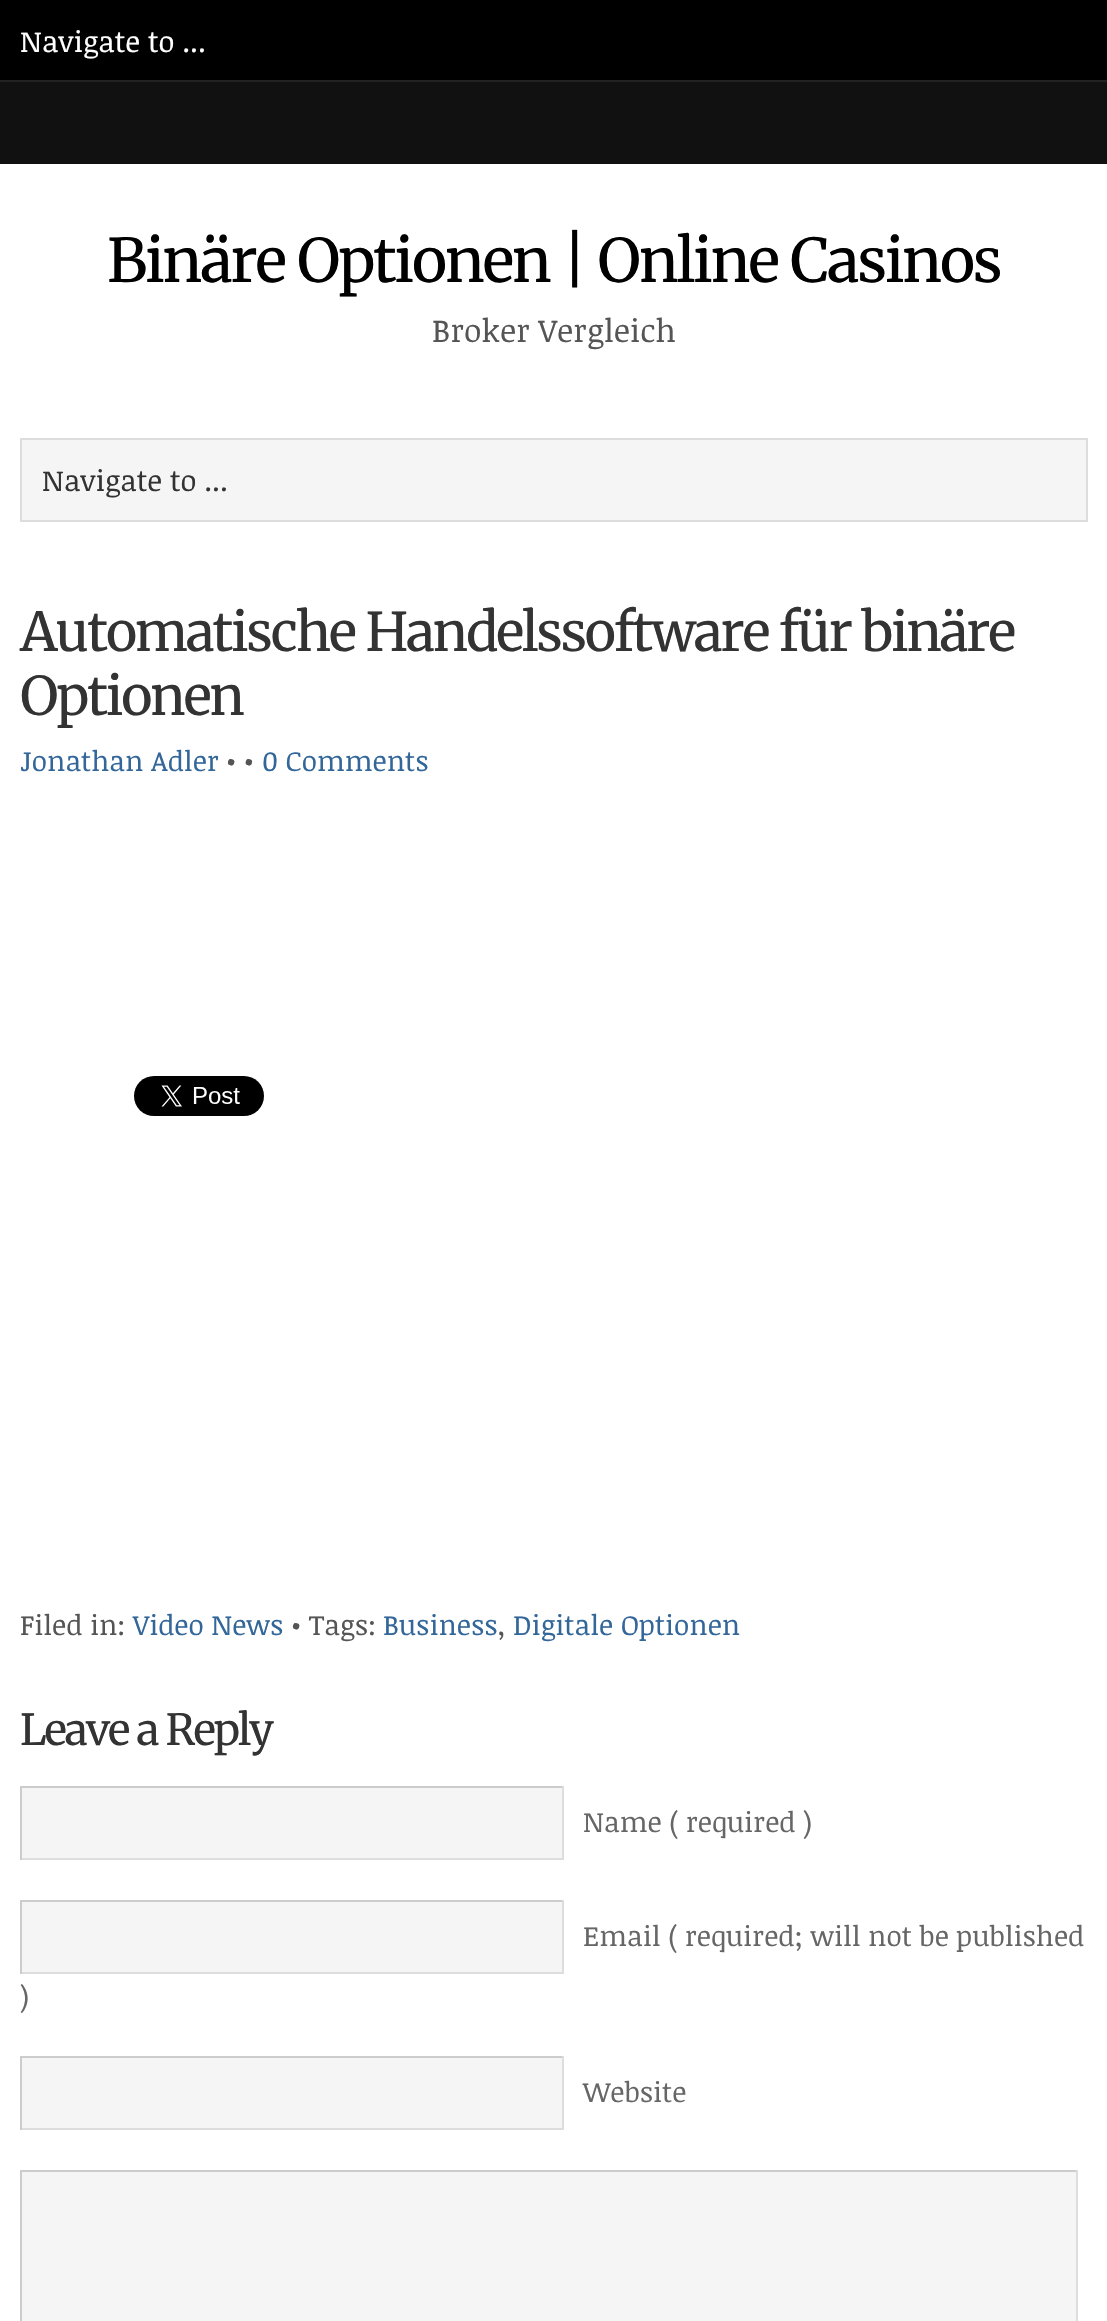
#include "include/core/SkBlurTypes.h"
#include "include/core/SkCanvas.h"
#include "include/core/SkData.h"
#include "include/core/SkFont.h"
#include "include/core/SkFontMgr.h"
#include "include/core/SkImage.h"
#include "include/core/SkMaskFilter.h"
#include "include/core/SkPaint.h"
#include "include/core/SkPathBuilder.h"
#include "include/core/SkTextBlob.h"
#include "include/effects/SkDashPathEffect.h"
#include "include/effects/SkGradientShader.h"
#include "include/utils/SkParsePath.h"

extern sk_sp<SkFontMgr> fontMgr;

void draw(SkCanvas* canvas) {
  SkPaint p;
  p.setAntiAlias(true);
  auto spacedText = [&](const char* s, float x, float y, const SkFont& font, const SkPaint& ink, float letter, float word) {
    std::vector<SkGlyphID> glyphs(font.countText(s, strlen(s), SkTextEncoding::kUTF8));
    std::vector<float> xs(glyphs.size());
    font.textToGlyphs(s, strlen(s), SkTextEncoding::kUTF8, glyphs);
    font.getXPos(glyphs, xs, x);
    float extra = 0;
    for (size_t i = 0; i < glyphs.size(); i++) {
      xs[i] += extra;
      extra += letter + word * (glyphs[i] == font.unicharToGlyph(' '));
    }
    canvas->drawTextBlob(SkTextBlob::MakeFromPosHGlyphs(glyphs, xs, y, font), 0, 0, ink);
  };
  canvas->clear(SK_ColorWHITE);
  p.setColor(SK_ColorBLACK);
  canvas->drawRect(SkRect::MakeLTRB(0, 0, 1107, 80), p);
  p.setColor(SkColorSetRGB(17, 17, 17));
  canvas->drawRect(SkRect::MakeLTRB(0, 82, 1107, 164), p);
  p.setColor(SkColorSetRGB(34, 34, 34));
  canvas->drawRect(SkRect::MakeLTRB(0, 80, 1107, 82), p);
  p.setColor(SkColorSetRGB(245, 245, 245));
  canvas->drawRect(SkRect::MakeLTRB(21, 439, 1087, 521), p);
  p.setStyle(SkPaint::kStroke_Style);
  p.setStrokeWidth(2);
  p.setColor(SkColorSetRGB(221, 221, 221));
  canvas->drawRect(SkRect::MakeLTRB(21, 439, 1087, 521), p);
  canvas->drawImageRect(SkImages::DeferredFromEncodedData(SkData::MakeFromFileName("images/1.png")), SkRect::MakeLTRB(134, 1076, 264, 1116), SkSamplingOptions());
  p.setStyle(SkPaint::kFill_Style);
  p.setColor(SkColorSetRGB(245, 245, 245));
  canvas->drawRect(SkRect::MakeLTRB(22, 1788, 562, 1858), p);
  p.setColor(SkColorSetRGB(204, 204, 204));
  canvas->drawRect(SkRect::MakeLTRB(20, 1786, 564, 1788), p);
  p.setColor(SkColorSetRGB(221, 221, 221));
  canvas->drawRect(SkRect::MakeLTRB(562, 1786, 564, 1860), p);
  canvas->drawRect(SkRect::MakeLTRB(20, 1858, 564, 1860), p);
  p.setColor(SkColorSetRGB(204, 204, 204));
  canvas->drawRect(SkRect::MakeLTRB(20, 1786, 22, 1860), p);
  p.setColor(SkColorSetRGB(245, 245, 245));
  canvas->drawRect(SkRect::MakeLTRB(22, 1902, 562, 1972), p);
  p.setColor(SkColorSetRGB(204, 204, 204));
  canvas->drawRect(SkRect::MakeLTRB(20, 1900, 564, 1902), p);
  p.setColor(SkColorSetRGB(221, 221, 221));
  canvas->drawRect(SkRect::MakeLTRB(562, 1900, 564, 1974), p);
  canvas->drawRect(SkRect::MakeLTRB(20, 1972, 564, 1974), p);
  p.setColor(SkColorSetRGB(204, 204, 204));
  canvas->drawRect(SkRect::MakeLTRB(20, 1900, 22, 1974), p);
  p.setColor(SkColorSetRGB(245, 245, 245));
  canvas->drawRect(SkRect::MakeLTRB(22, 2058, 562, 2128), p);
  p.setColor(SkColorSetRGB(204, 204, 204));
  canvas->drawRect(SkRect::MakeLTRB(20, 2056, 564, 2058), p);
  p.setColor(SkColorSetRGB(221, 221, 221));
  canvas->drawRect(SkRect::MakeLTRB(562, 2056, 564, 2130), p);
  canvas->drawRect(SkRect::MakeLTRB(20, 2128, 564, 2130), p);
  p.setColor(SkColorSetRGB(204, 204, 204));
  canvas->drawRect(SkRect::MakeLTRB(20, 2056, 22, 2130), p);
  p.setColor(SkColorSetRGB(245, 245, 245));
  canvas->drawRect(SkRect::MakeLTRB(22, 2172, 1076, 2321), p);
  p.setColor(SkColorSetRGB(204, 204, 204));
  canvas->drawRect(SkRect::MakeLTRB(20, 2170, 1078, 2172), p);
  p.setColor(SkColorSetRGB(221, 221, 221));
  canvas->drawRect(SkRect::MakeLTRB(1076, 2170, 1078, 2321), p);
  p.setColor(SkColorSetRGB(204, 204, 204));
  canvas->drawRect(SkRect::MakeLTRB(20, 2170, 22, 2321), p);
  SkFont font1(fontMgr->matchFamilyStyle("Noticia Text", SkFontStyle::Normal()), 29.25f);
  font1.setSubpixel(true);
  p.setColor(SK_ColorWHITE);
  canvas->drawString("Navigate to ...", 20, 52, font1, p);
  SkFont font2(fontMgr->matchFamilyStyle("Merriweather", SkFontStyle::Normal()), 60);
  font2.setSubpixel(true);
  p.setColor(SK_ColorBLACK);
  spacedText("Binäre Optionen | Online Casinos", 107, 282, font2, p, -2, 0);
  SkFont font3(fontMgr->matchFamilyStyle("Noticia Text", SkFontStyle::Normal()), 32);
  font3.setSubpixel(true);
  p.setColor(SkColorSetRGB(85, 85, 85));
  canvas->drawString("Broker Vergleich", 432, 342, font3, p);
  p.setColor(SkColorSetRGB(51, 51, 51));
  canvas->drawString("Navigate to ...", 42, 491, font1, p);
  SkFont font4(fontMgr->matchFamilyStyle("Merriweather", SkFontStyle::Normal()), 53.3f);
  font4.setSubpixel(true);
  spacedText("Automatische Handelssoftware für binäre", 20, 651, font4, p, -2, 0);
  spacedText("Optionen", 20, 715, font4, p, -2, 0);
  SkFont font5(fontMgr->matchFamilyStyle("Noticia Text", SkFontStyle::Normal()), 28);
  font5.setSubpixel(true);
  p.setColor(SkColorSetRGB(51, 102, 153));
  canvas->drawString("Jonathan Adler", 20, 771, font5, p);
  p.setColor(SkColorSetRGB(85, 85, 85));
  canvas->drawString("• •", 226, 771, font5, p);
  p.setColor(SkColorSetRGB(51, 102, 153));
  canvas->drawString("0 Comments", 262, 771, font5, p);
  p.setColor(SkColorSetRGB(85, 85, 85));
  canvas->drawString("Filed in:", 20, 1635, font5, p);
  p.setColor(SkColorSetRGB(51, 102, 153));
  canvas->drawString("Video News", 133, 1635, font5, p);
  p.setColor(SkColorSetRGB(85, 85, 85));
  canvas->drawString("• Tags:", 291, 1635, font5, p);
  p.setColor(SkColorSetRGB(51, 102, 153));
  canvas->drawString("Business", 383, 1635, font5, p);
  p.setColor(SkColorSetRGB(85, 85, 85));
  canvas->drawString(",", 498, 1635, font5, p);
  p.setColor(SkColorSetRGB(51, 102, 153));
  canvas->drawString("Digitale Optionen", 513, 1635, font5, p);
  SkFont font6(fontMgr->matchFamilyStyle("Merriweather", SkFontStyle::Normal()), 42.75f);
  font6.setSubpixel(true);
  p.setColor(SkColorSetRGB(51, 51, 51));
  spacedText("Leave a Reply", 20, 1745, font6, p, -2, 0);
  p.setColor(SkColorSetRGB(102, 102, 102));
  canvas->drawString("Name ( required )", 583, 1832, font5, p);
  canvas->drawString("Email ( required; will not be published", 583, 1946, font5, p);
  canvas->drawString(")", 20, 2006, font5, p);
  canvas->drawString("Website", 583, 2102, font5, p);
}
